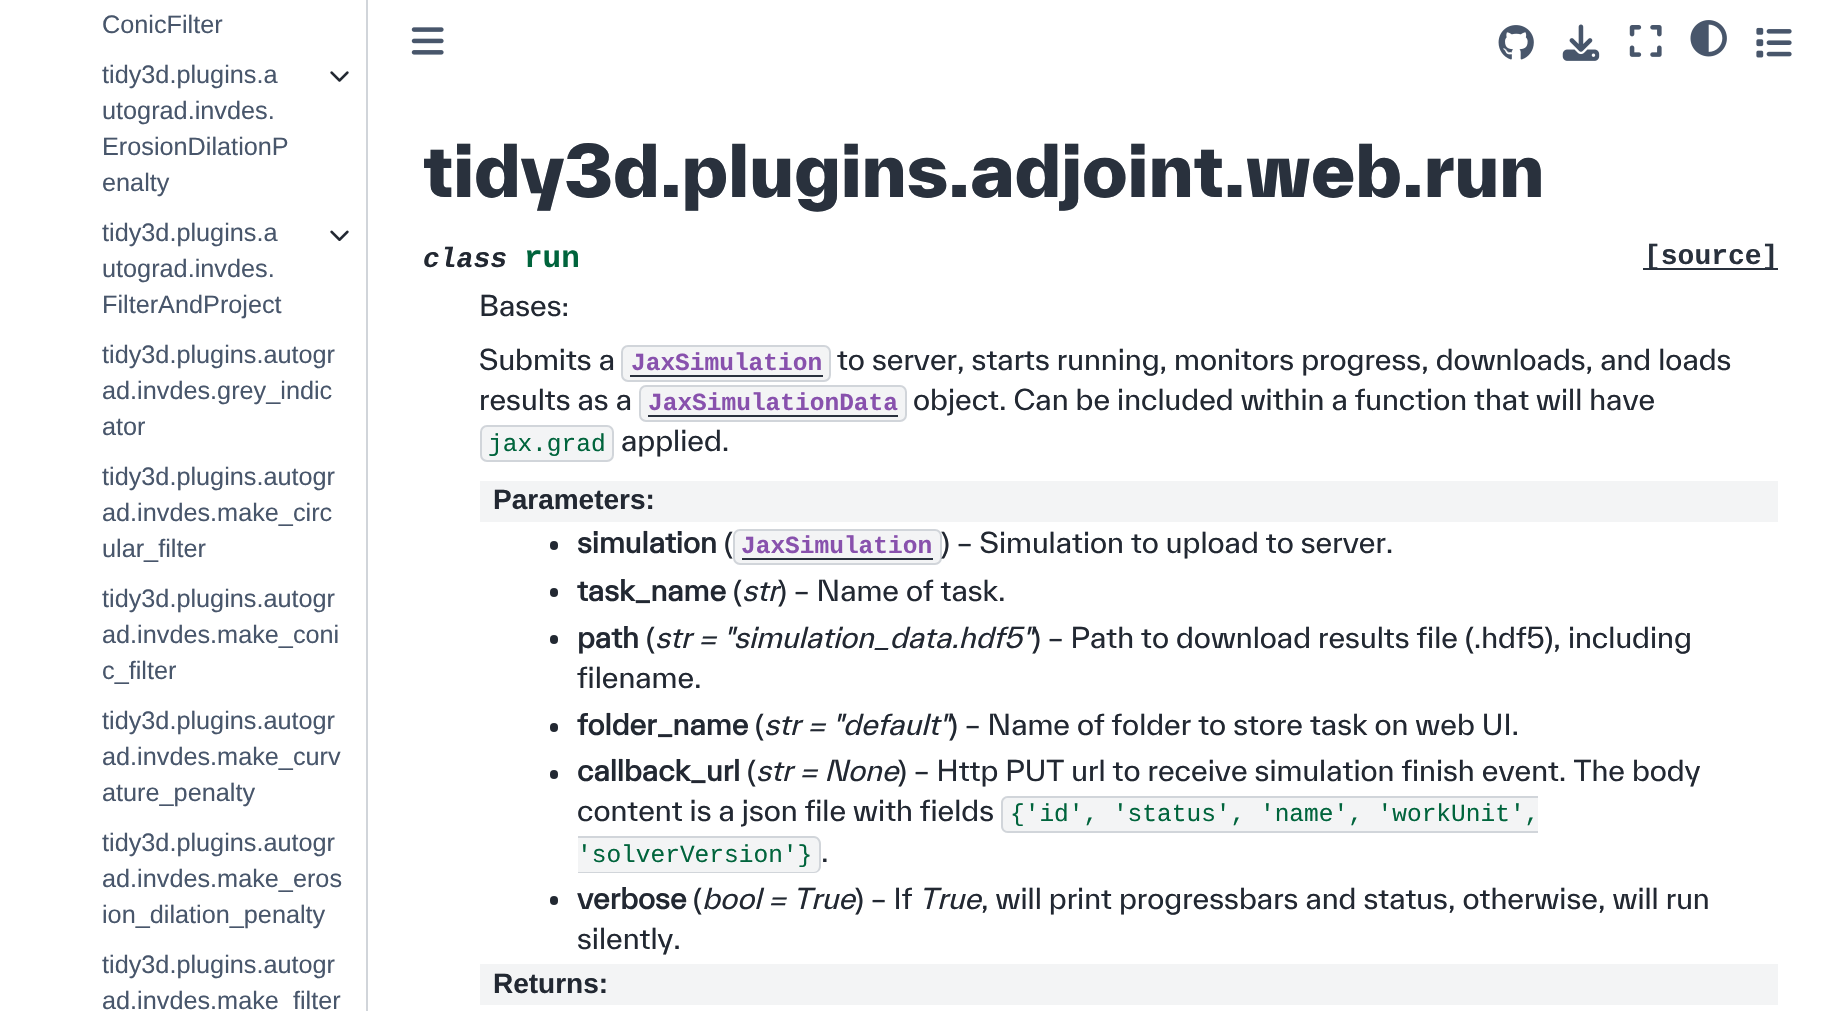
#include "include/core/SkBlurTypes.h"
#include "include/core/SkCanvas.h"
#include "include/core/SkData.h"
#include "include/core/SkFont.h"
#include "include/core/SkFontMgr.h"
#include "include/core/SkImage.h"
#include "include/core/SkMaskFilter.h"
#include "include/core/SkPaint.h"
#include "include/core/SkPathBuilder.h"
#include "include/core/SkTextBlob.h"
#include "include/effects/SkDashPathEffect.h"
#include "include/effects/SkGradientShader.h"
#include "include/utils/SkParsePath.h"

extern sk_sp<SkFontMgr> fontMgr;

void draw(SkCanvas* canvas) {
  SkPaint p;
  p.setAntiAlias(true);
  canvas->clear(SK_ColorWHITE);
  p.setColor(SkColorSetRGB(209, 213, 218));
  canvas->drawRect(SkRect::MakeLTRB(366, 0, 368, 1011), p);
  canvas->drawImageRect(SkImages::DeferredFromEncodedData(SkData::MakeFromFileName("images/1.png")), SkRect::MakeLTRB(330, 71, 349, 82), SkSamplingOptions());
  canvas->drawImageRect(SkImages::DeferredFromEncodedData(SkData::MakeFromFileName("images/2.png")), SkRect::MakeLTRB(330, 230, 349, 241), SkSamplingOptions());
  canvas->drawImageRect(SkImages::DeferredFromEncodedData(SkData::MakeFromFileName("images/3.png")), SkRect::MakeLTRB(411, 27, 444, 55), SkSamplingOptions());
  canvas->drawImageRect(SkImages::DeferredFromEncodedData(SkData::MakeFromFileName("images/4.png")), SkRect::MakeLTRB(1498, 25, 1534, 60), SkSamplingOptions());
  canvas->drawImageRect(SkImages::DeferredFromEncodedData(SkData::MakeFromFileName("images/5.png")), SkRect::MakeLTRB(1562, 24, 1600, 61), SkSamplingOptions());
  canvas->drawImageRect(SkImages::DeferredFromEncodedData(SkData::MakeFromFileName("images/6.png")), SkRect::MakeLTRB(1629, 25, 1662, 57), SkSamplingOptions());
  canvas->drawImageRect(SkImages::DeferredFromEncodedData(SkData::MakeFromFileName("images/7.png")), SkRect::MakeLTRB(1690, 20, 1727, 57), SkSamplingOptions());
  canvas->drawImageRect(SkImages::DeferredFromEncodedData(SkData::MakeFromFileName("images/8.png")), SkRect::MakeLTRB(1756, 27, 1792, 58), SkSamplingOptions());
  p.setColor(SkColorSetRGB(41, 49, 61));
  canvas->drawRect(SkRect::MakeLTRB(1643, 268, 1778, 270), p);
  p.setColor(SkColorSetRGB(243, 244, 245));
  canvas->drawRoundRect(SkRect::MakeLTRB(622, 346, 830, 381), 6, 6, p);
  p.setStyle(SkPaint::kStroke_Style);
  p.setStrokeWidth(2);
  p.setColor(SkColorSetRGB(209, 213, 218));
  canvas->drawRoundRect(SkRect::MakeLTRB(622, 346, 830, 381), 6, 6, p);
  p.setStyle(SkPaint::kFill_Style);
  p.setColor(SkColorSetRGB(41, 49, 61));
  canvas->drawRect(SkRect::MakeLTRB(630, 375, 823, 377), p);
  p.setColor(SkColorSetRGB(243, 244, 245));
  canvas->drawRoundRect(SkRect::MakeLTRB(640, 386, 906, 421), 6, 6, p);
  p.setStyle(SkPaint::kStroke_Style);
  p.setColor(SkColorSetRGB(209, 213, 218));
  canvas->drawRoundRect(SkRect::MakeLTRB(640, 386, 906, 421), 6, 6, p);
  p.setStyle(SkPaint::kFill_Style);
  p.setColor(SkColorSetRGB(41, 49, 61));
  canvas->drawRect(SkRect::MakeLTRB(648, 415, 898, 417), p);
  p.setColor(SkColorSetRGB(243, 244, 245));
  canvas->drawRoundRect(SkRect::MakeLTRB(481, 426, 613, 461), 6, 6, p);
  p.setStyle(SkPaint::kStroke_Style);
  p.setColor(SkColorSetRGB(209, 213, 218));
  canvas->drawRoundRect(SkRect::MakeLTRB(481, 426, 613, 461), 6, 6, p);
  p.setStyle(SkPaint::kFill_Style);
  p.setColor(SkColorSetRGB(243, 244, 245));
  canvas->drawRect(SkRect::MakeLTRB(480, 481, 1778, 522), p);
  p.setColor(SkColorSetRGB(34, 40, 50));
  canvas->drawRoundRect(SkRect::MakeLTRB(550, 541, 558, 550), 4, 4, p);
  p.setColor(SkColorSetRGB(243, 244, 245));
  canvas->drawRoundRect(SkRect::MakeLTRB(734, 530, 941, 564), 6, 6, p);
  p.setStyle(SkPaint::kStroke_Style);
  p.setColor(SkColorSetRGB(209, 213, 218));
  canvas->drawRoundRect(SkRect::MakeLTRB(734, 530, 941, 564), 6, 6, p);
  p.setStyle(SkPaint::kFill_Style);
  p.setColor(SkColorSetRGB(41, 49, 61));
  canvas->drawRect(SkRect::MakeLTRB(742, 558, 933, 560), p);
  p.setColor(SkColorSetRGB(34, 40, 50));
  canvas->drawRoundRect(SkRect::MakeLTRB(550, 588, 558, 597), 4, 4, p);
  canvas->drawRoundRect(SkRect::MakeLTRB(550, 635, 558, 644), 4, 4, p);
  canvas->drawRoundRect(SkRect::MakeLTRB(550, 723, 558, 732), 4, 4, p);
  canvas->drawRoundRect(SkRect::MakeLTRB(550, 770, 558, 779), 4, 4, p);
  p.setColor(SkColorSetRGB(243, 244, 245));
  canvas->drawPath(SkPathBuilder().moveTo(1008, 796).lineTo(1097, 796).lineTo(1097, 833).lineTo(1008, 833).cubicTo(1004, 833, 1001, 830, 1001, 826).lineTo(1001, 803).cubicTo(1001, 799, 1004, 796, 1008, 796).close().detach(), p);
  p.setColor(SkColorSetRGB(209, 213, 218));
  canvas->drawPath(SkPathBuilder(SkPathFillType::kEvenOdd).moveTo(1008, 796).lineTo(1097, 796).lineTo(1097, 833).lineTo(1008, 833).cubicTo(1004, 833, 1001, 830, 1001, 826).lineTo(1001, 803).cubicTo(1001, 799, 1004, 796, 1008, 796).close().moveTo(1008, 798).lineTo(1097, 798).lineTo(1097, 831).lineTo(1008, 831).cubicTo(1005, 831, 1003, 829, 1003, 826).lineTo(1003, 803).cubicTo(1003, 800, 1005, 798, 1008, 798).close().detach(), p);
  p.setColor(SkColorSetRGB(243, 244, 245));
  canvas->drawRect(SkRect::MakeLTRB(1097, 798, 1538, 831), p);
  p.setColor(SkColorSetRGB(209, 213, 218));
  canvas->drawRect(SkRect::MakeLTRB(1097, 796, 1538, 798), p);
  canvas->drawRect(SkRect::MakeLTRB(1097, 831, 1538, 833), p);
  p.setColor(SkColorSetRGB(243, 244, 245));
  canvas->drawPath(SkPathBuilder().moveTo(578, 837).lineTo(814, 837).cubicTo(818, 837, 821, 840, 821, 844).lineTo(821, 866).cubicTo(821, 870, 818, 873, 814, 873).lineTo(578, 873).close().detach(), p);
  p.setColor(SkColorSetRGB(209, 213, 218));
  canvas->drawPath(SkPathBuilder(SkPathFillType::kEvenOdd).moveTo(578, 836).lineTo(814, 836).cubicTo(818, 836, 821, 840, 821, 844).lineTo(821, 866).cubicTo(821, 870, 818, 873, 814, 873).lineTo(578, 873).close().moveTo(578, 838).lineTo(814, 838).cubicTo(817, 838, 819, 841, 819, 844).lineTo(819, 866).cubicTo(819, 869, 817, 872, 814, 872).lineTo(578, 872).close().detach(), p);
  p.setColor(SkColorSetRGB(34, 40, 50));
  canvas->drawRoundRect(SkRect::MakeLTRB(550, 896, 558, 905), 4, 4, p);
  p.setColor(SkColorSetRGB(243, 244, 245));
  canvas->drawRect(SkRect::MakeLTRB(480, 964, 1778, 1005), p);
  SkFont font1(fontMgr->matchFamilyStyle("Liberation Sans", SkFontStyle::Normal()), 25.25f);
  font1.setSubpixel(true);
  p.setColor(SkColorSetRGB(72, 86, 107));
  canvas->drawString("ConicFilter", 102, 33, font1, p);
  canvas->drawString("tidy3d.plugins.a", 102, 83, font1, p);
  canvas->drawString("utograd.invdes.", 102, 119, font1, p);
  canvas->drawString("ErosionDilationP", 102, 155, font1, p);
  canvas->drawString("enalty", 102, 191, font1, p);
  canvas->drawString("tidy3d.plugins.a", 102, 241, font1, p);
  canvas->drawString("utograd.invdes.", 102, 277, font1, p);
  canvas->drawString("FilterAndProject", 102, 313, font1, p);
  canvas->drawString("tidy3d.plugins.autogr", 102, 363, font1, p);
  canvas->drawString("ad.invdes.grey_indic", 102, 399, font1, p);
  canvas->drawString("ator", 102, 435, font1, p);
  canvas->drawString("tidy3d.plugins.autogr", 102, 485, font1, p);
  canvas->drawString("ad.invdes.make_circ", 102, 521, font1, p);
  canvas->drawString("ular_filter", 102, 557, font1, p);
  canvas->drawString("tidy3d.plugins.autogr", 102, 607, font1, p);
  canvas->drawString("ad.invdes.make_coni", 102, 643, font1, p);
  canvas->drawString("c_filter", 102, 679, font1, p);
  canvas->drawString("tidy3d.plugins.autogr", 102, 729, font1, p);
  canvas->drawString("ad.invdes.make_curv", 102, 765, font1, p);
  canvas->drawString("ature_penalty", 102, 801, font1, p);
  canvas->drawString("tidy3d.plugins.autogr", 102, 851, font1, p);
  canvas->drawString("ad.invdes.make_eros", 102, 887, font1, p);
  canvas->drawString("ion_dilation_penalty", 102, 923, font1, p);
  canvas->drawString("tidy3d.plugins.autogr", 102, 973, font1, p);
  canvas->drawString("ad.invdes.make_filter", 102, 1009, font1, p);
  SkFont font2(fontMgr->matchFamilyStyle("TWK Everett", SkFontStyle(800, SkFontStyle::kNormal_Width, SkFontStyle::kUpright_Slant)), 70);
  font2.setSubpixel(true);
  p.setColor(SkColorSetRGB(41, 49, 61));
  canvas->drawString("tidy3d.plugins.adjoint.web.run", 423, 197, font2, p);
  SkFont font3(fontMgr->matchFamilyStyle("Liberation Mono", SkFontStyle::BoldItalic()), 28);
  font3.setSubpixel(true);
  p.setColor(SkColorSetRGB(34, 40, 50));
  canvas->drawString("class", 423, 267, font3, p);
  SkFont font4(fontMgr->matchFamilyStyle("Liberation Mono", SkFontStyle::Bold()), 31);
  font4.setSubpixel(true);
  p.setColor(SkColorSetRGB(0, 100, 60));
  canvas->drawString("run", 524, 267, font4, p);
  SkFont font5(fontMgr->matchFamilyStyle("Liberation Mono", SkFontStyle::Bold()), 28);
  font5.setSubpixel(true);
  p.setColor(SkColorSetRGB(41, 49, 61));
  canvas->drawString("[source]", 1644, 264, font5, p);
  SkFont font6(fontMgr->matchFamilyStyle("TWK Everett", SkFontStyle::Normal()), 28);
  font6.setSubpixel(true);
  p.setColor(SkColorSetRGB(34, 40, 50));
  canvas->drawString("Bases:", 479, 316, font6, p);
  canvas->drawString("Submits a", 479, 370, font6, p);
  SkFont font7(fontMgr->matchFamilyStyle("Liberation Mono", SkFontStyle::Bold()), 24.5f);
  font7.setSubpixel(true);
  p.setColor(SkColorSetRGB(136, 81, 173));
  canvas->drawString("JaxSimulation", 631, 370, font7, p);
  p.setColor(SkColorSetRGB(34, 40, 50));
  canvas->drawString("to server, starts running, monitors progress, downloads, and loads", 837, 370, font6, p);
  canvas->drawString("results as a", 479, 410, font6, p);
  p.setColor(SkColorSetRGB(136, 81, 173));
  canvas->drawString("JaxSimulationData", 648, 410, font7, p);
  p.setColor(SkColorSetRGB(34, 40, 50));
  canvas->drawString("object. Can be included within a function that will have", 913, 410, font6, p);
  SkFont font8(fontMgr->matchFamilyStyle("Liberation Mono", SkFontStyle::Normal()), 24.5f);
  font8.setSubpixel(true);
  p.setColor(SkColorSetRGB(0, 100, 60));
  canvas->drawString("jax.grad", 488, 451, font8, p);
  p.setColor(SkColorSetRGB(34, 40, 50));
  canvas->drawString("applied.", 621, 451, font6, p);
  SkFont font9(fontMgr->matchFamilyStyle("Liberation Sans", SkFontStyle::Bold()), 28);
  font9.setSubpixel(true);
  canvas->drawString("Parameters:", 493, 509, font9, p);
  SkFont font10(fontMgr->matchFamilyStyle("TWK Everett", SkFontStyle::Bold()), 28);
  font10.setSubpixel(true);
  canvas->drawString("simulation", 577, 553, font10, p);
  canvas->drawString("(", 724, 553, font6, p);
  p.setColor(SkColorSetRGB(136, 81, 173));
  canvas->drawString("JaxSimulation", 741, 553, font7, p);
  p.setColor(SkColorSetRGB(34, 40, 50));
  canvas->drawString(") – Simulation to upload to server.", 941, 553, font6, p);
  canvas->drawString("task_name", 577, 601, font10, p);
  canvas->drawString("(", 733, 601, font6, p);
  SkFont font11(fontMgr->matchFamilyStyle("TWK Everett", SkFontStyle::Italic()), 28);
  font11.setSubpixel(true);
  canvas->drawString("str", 742, 601, font11, p);
  canvas->drawString(") – Name of task.", 778, 601, font6, p);
  canvas->drawString("path", 577, 648, font10, p);
  canvas->drawString("(", 646, 648, font6, p);
  canvas->drawString("str = \"simulation_data.hdf5\"", 655, 648, font11, p);
  canvas->drawString(") – Path to download results file (.hdf5), including", 1032, 648, font6, p);
  canvas->drawString("filename.", 577, 688, font6, p);
  canvas->drawString("folder_name", 577, 735, font10, p);
  canvas->drawString("(", 755, 735, font6, p);
  canvas->drawString("str = \"default\"", 764, 735, font11, p);
  canvas->drawString(") – Name of folder to store task on web UI.", 949, 735, font6, p);
  canvas->drawString("callback_url", 577, 781, font10, p);
  canvas->drawString("(", 747, 781, font6, p);
  canvas->drawString("str = None", 756, 781, font11, p);
  canvas->drawString(") – Http PUT url to receive simulation finish event. The body", 898, 781, font6, p);
  canvas->drawString("content is a json file with fields", 577, 821, font6, p);
  p.setColor(SkColorSetRGB(0, 100, 60));
  canvas->drawString("{'id', 'status', 'name', 'workUnit',", 1010, 821, font8, p);
  canvas->drawString("'solverVersion'}", 577, 862, font8, p);
  p.setColor(SkColorSetRGB(34, 40, 50));
  canvas->drawString(".", 821, 862, font6, p);
  canvas->drawString("verbose", 577, 909, font10, p);
  canvas->drawString("(", 693, 909, font6, p);
  canvas->drawString("bool = True", 702, 909, font11, p);
  canvas->drawString(") – If", 855, 909, font6, p);
  canvas->drawString("True", 919, 909, font11, p);
  canvas->drawString(", will print progressbars and status, otherwise, will run", 981, 909, font6, p);
  canvas->drawString("silently.", 577, 949, font6, p);
  canvas->drawString("Returns:", 493, 993, font9, p);
}
